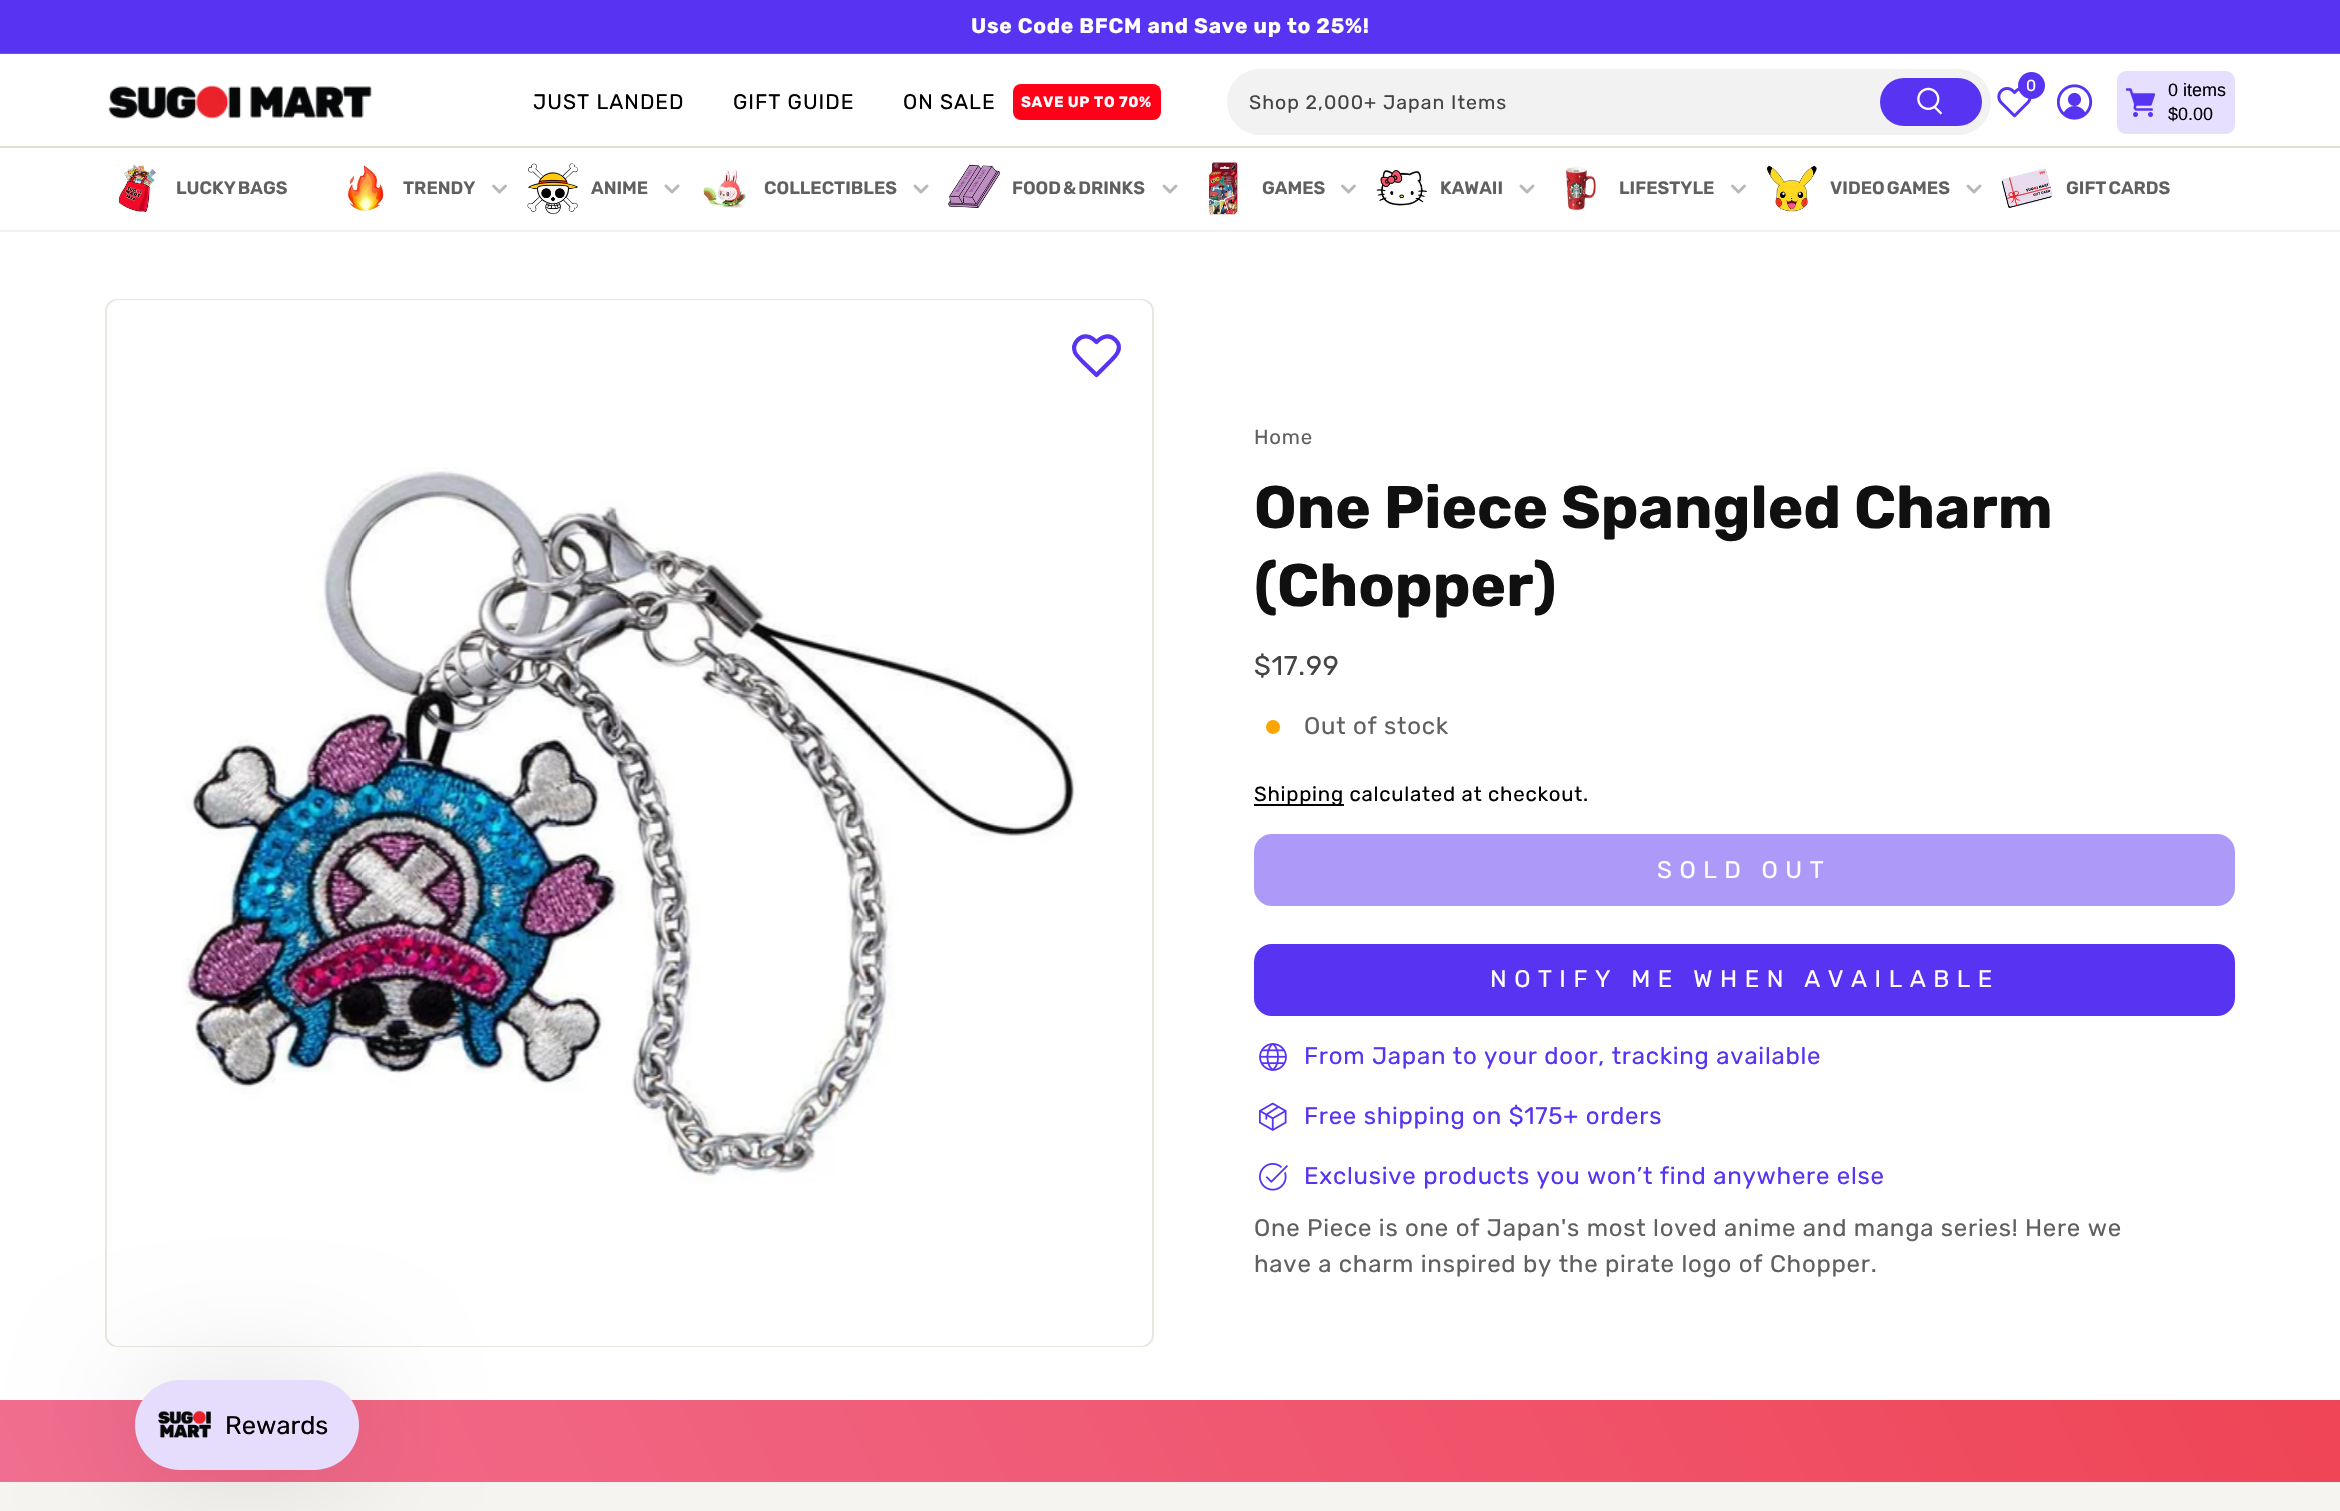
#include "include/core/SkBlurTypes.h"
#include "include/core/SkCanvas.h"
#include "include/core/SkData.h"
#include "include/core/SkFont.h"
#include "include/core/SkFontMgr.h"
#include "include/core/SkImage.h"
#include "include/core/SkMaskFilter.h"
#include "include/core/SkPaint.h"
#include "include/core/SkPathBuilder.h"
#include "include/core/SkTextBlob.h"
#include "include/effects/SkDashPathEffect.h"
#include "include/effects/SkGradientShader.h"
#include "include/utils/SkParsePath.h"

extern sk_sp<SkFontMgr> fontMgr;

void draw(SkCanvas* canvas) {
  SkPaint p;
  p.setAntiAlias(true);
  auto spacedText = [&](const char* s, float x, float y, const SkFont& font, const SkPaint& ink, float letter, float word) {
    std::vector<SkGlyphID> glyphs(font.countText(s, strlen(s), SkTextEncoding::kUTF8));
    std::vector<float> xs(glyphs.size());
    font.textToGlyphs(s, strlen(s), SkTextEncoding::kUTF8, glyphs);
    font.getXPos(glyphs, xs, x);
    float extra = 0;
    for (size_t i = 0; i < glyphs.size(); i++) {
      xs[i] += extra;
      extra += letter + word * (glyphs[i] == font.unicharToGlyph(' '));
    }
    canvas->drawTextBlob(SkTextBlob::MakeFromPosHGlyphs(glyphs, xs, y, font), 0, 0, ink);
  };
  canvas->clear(SK_ColorWHITE);
  p.setColor(SkColorSetRGB(88, 51, 241));
  canvas->drawRect(SkRect::MakeLTRB(0, 0, 2340, 53), p);
  p.setColor(SkColorSetRGB(113, 82, 243));
  canvas->drawRect(SkRect::MakeLTRB(0, 53, 2340, 54), p);
  canvas->drawImageRect(SkImages::DeferredFromEncodedData(SkData::MakeFromFileName("images/1.png")), SkRect::MakeLTRB(108, 85, 372, 119), SkSamplingOptions());
  p.setColor(SkColorSetRGB(255, 0, 24));
  canvas->drawRoundRect(SkRect::MakeLTRB(1013, 84, 1161, 120), 8, 8, p);
  p.setColor(SkColorSetRGB(242, 242, 242));
  canvas->drawRoundRect(SkRect::MakeLTRB(1227, 69, 1991, 135), 33, 33, p);
  p.setColor(SkColorSetRGB(88, 51, 241));
  canvas->drawRoundRect(SkRect::MakeLTRB(1880, 78, 1982, 126), 24, 24, p);
  canvas->drawImageRect(SkImages::DeferredFromEncodedData(SkData::MakeFromFileName("images/2.png")), SkRect::MakeLTRB(1917, 87, 1943, 115), SkSamplingOptions());
  canvas->drawImageRect(SkImages::DeferredFromEncodedData(SkData::MakeFromFileName("images/3.png")), SkRect::MakeLTRB(1997, 87, 2032, 118), SkSamplingOptions());
  canvas->drawCircle(2031.5f, 85.5f, 13.5f, p);
  canvas->drawImageRect(SkImages::DeferredFromEncodedData(SkData::MakeFromFileName("images/4.png")), SkRect::MakeLTRB(2057, 84, 2093, 120), SkSamplingOptions());
  p.setColor(SkColorSetRGB(230, 223, 255));
  canvas->drawRoundRect(SkRect::MakeLTRB(2117, 71, 2235, 134), 9, 9, p);
  canvas->drawImageRect(SkImages::DeferredFromEncodedData(SkData::MakeFromFileName("images/5.png")), SkRect::MakeLTRB(2126, 88, 2156, 117), SkSamplingOptions());
  p.setColor(SkColorSetRGB(228, 224, 206));
  canvas->drawRect(SkRect::MakeLTRB(0, 146, 2340, 148), p);
  p.setColor(SkColorSetRGB(242, 242, 242));
  canvas->drawRect(SkRect::MakeLTRB(0, 230, 2340, 232), p);
  canvas->drawImageRect(SkImages::DeferredFromEncodedData(SkData::MakeFromFileName("images/6.png")), SkRect::MakeLTRB(117, 164, 157, 213), SkSamplingOptions());
  canvas->drawImageRect(SkImages::DeferredFromEncodedData(SkData::MakeFromFileName("images/7.png")), SkRect::MakeLTRB(347, 162, 385, 213), SkSamplingOptions());
  p.setStyle(SkPaint::kStroke_Style);
  p.setStrokeWidth(3);
  p.setStrokeCap(SkPaint::kRound_Cap);
  p.setStrokeJoin(SkPaint::kRound_Join);
  p.setColor(SkColorSetRGB(184, 184, 184));
  canvas->drawPath(SkPathBuilder().moveTo(493.5f, 186).lineTo(499.5f, 192).lineTo(505.5f, 186).detach(), p);
  canvas->drawImageRect(SkImages::DeferredFromEncodedData(SkData::MakeFromFileName("images/8.png")), SkRect::MakeLTRB(527, 163, 579, 214), SkSamplingOptions());
  canvas->drawPath(SkPathBuilder().moveTo(666, 186).lineTo(672, 192).lineTo(678, 186).detach(), p);
  canvas->drawImageRect(SkImages::DeferredFromEncodedData(SkData::MakeFromFileName("images/9.png")), SkRect::MakeLTRB(703, 169, 747, 208), SkSamplingOptions());
  canvas->drawPath(SkPathBuilder().moveTo(915, 186).lineTo(921, 192).lineTo(927, 186).detach(), p);
  canvas->drawImageRect(SkImages::DeferredFromEncodedData(SkData::MakeFromFileName("images/10.png")), SkRect::MakeLTRB(948, 164, 1001, 208), SkSamplingOptions());
  canvas->drawPath(SkPathBuilder().moveTo(1164, 186).lineTo(1170, 192).lineTo(1176, 186).detach(), p);
  canvas->drawImageRect(SkImages::DeferredFromEncodedData(SkData::MakeFromFileName("images/11.png")), SkRect::MakeLTRB(1207, 162, 1239, 215), SkSamplingOptions());
  canvas->drawPath(SkPathBuilder().moveTo(1342.5f, 186).lineTo(1348.5f, 192).lineTo(1354.5f, 186).detach(), p);
  canvas->drawImageRect(SkImages::DeferredFromEncodedData(SkData::MakeFromFileName("images/12.png")), SkRect::MakeLTRB(1376, 170, 1428, 206), SkSamplingOptions());
  canvas->drawPath(SkPathBuilder().moveTo(1521, 186).lineTo(1527, 192).lineTo(1533, 186).detach(), p);
  canvas->drawImageRect(SkImages::DeferredFromEncodedData(SkData::MakeFromFileName("images/13.png")), SkRect::MakeLTRB(1563, 167, 1596, 214), SkSamplingOptions());
  canvas->drawPath(SkPathBuilder().moveTo(1732.5f, 186).lineTo(1738.5f, 192).lineTo(1744.5f, 186).detach(), p);
  canvas->drawImageRect(SkImages::DeferredFromEncodedData(SkData::MakeFromFileName("images/14.png")), SkRect::MakeLTRB(1766, 165, 1817, 212), SkSamplingOptions());
  canvas->drawPath(SkPathBuilder().moveTo(1968, 186).lineTo(1974, 192).lineTo(1980, 186).detach(), p);
  canvas->drawImageRect(SkImages::DeferredFromEncodedData(SkData::MakeFromFileName("images/15.png")), SkRect::MakeLTRB(2001, 168, 2053, 208), SkSamplingOptions());
  p.setStrokeWidth(2);
  p.setStrokeCap(SkPaint::kButt_Cap);
  p.setStrokeJoin(SkPaint::kMiter_Join);
  p.setColor(SkColorSetRGB(232, 232, 225));
  canvas->drawRoundRect(SkRect::MakeLTRB(106, 300, 1153, 1346), 11, 11, p);
  p.setStyle(SkPaint::kFill_Style);
  p.setColor(SK_ColorWHITE);
  canvas->drawRoundRect(SkRect::MakeLTRB(107, 300, 1152, 1346), 12, 12, p);
  canvas->drawImageRect(SkImages::DeferredFromEncodedData(SkData::MakeFromFileName("images/16.png")), SkRect::MakeLTRB(181, 467, 1078, 1185), SkSamplingOptions());
  p.setStyle(SkPaint::kStroke_Style);
  p.setStrokeWidth(4.2f);
  p.setStrokeCap(SkPaint::kRound_Cap);
  p.setStrokeJoin(SkPaint::kRound_Join);
  p.setColor(SkColorSetRGB(88, 51, 241));
  canvas->drawPath(SkPathBuilder().moveTo(1115.5f, 340).cubicTo(1109, 333.5f, 1102, 336.5f, 1096.5f, 342).cubicTo(1094.5f, 340, 1092.5f, 338, 1089.5f, 337).cubicTo(1080, 334, 1071.5f, 343.5f, 1075, 352.5f).cubicTo(1076.5f, 356, 1080, 358.5f, 1082.5f, 361.5f).lineTo(1096.5f, 375).lineTo(1107.5f, 364).cubicTo(1114, 357.5f, 1124.5f, 349, 1115.5f, 340).close().detach(), p);
  p.setStyle(SkPaint::kFill_Style);
  p.setColor(SkColorSetRGB(255, 165, 0));
  canvas->drawCircle(1273, 727, 7, p);
  p.setColor(SK_ColorBLACK);
  canvas->drawRect(SkRect::MakeLTRB(1254, 804, 1344, 806), p);
  p.setColor(SkColorSetRGB(172, 153, 248));
  canvas->drawRoundRect(SkRect::MakeLTRB(1255, 835, 2234, 905), 17, 17, p);
  p.setStyle(SkPaint::kStroke_Style);
  p.setStrokeWidth(2);
  p.setStrokeCap(SkPaint::kButt_Cap);
  p.setStrokeJoin(SkPaint::kMiter_Join);
  canvas->drawRoundRect(SkRect::MakeLTRB(1255, 835, 2234, 905), 17, 17, p);
  p.setStyle(SkPaint::kFill_Style);
  p.setColor(SkColorSetRGB(88, 51, 241));
  canvas->drawRoundRect(SkRect::MakeLTRB(1255, 945, 2234, 1015), 17, 17, p);
  p.setStyle(SkPaint::kStroke_Style);
  canvas->drawRoundRect(SkRect::MakeLTRB(1255, 945, 2234, 1015), 17, 17, p);
  canvas->drawImageRect(SkImages::DeferredFromEncodedData(SkData::MakeFromFileName("images/17.png")), SkRect::MakeLTRB(1259, 1043, 1287, 1071), SkSamplingOptions());
  canvas->drawImageRect(SkImages::DeferredFromEncodedData(SkData::MakeFromFileName("images/18.png")), SkRect::MakeLTRB(1258, 1102, 1287, 1131), SkSamplingOptions());
  canvas->drawImageRect(SkImages::DeferredFromEncodedData(SkData::MakeFromFileName("images/19.png")), SkRect::MakeLTRB(1259, 1163, 1288, 1191), SkSamplingOptions());
  p.setStyle(SkPaint::kFill_Style);
  p.setColor(SkColorSetRGB(246, 244, 241));
  canvas->drawRect(SkRect::MakeLTRB(0, 1482, 2340, 1511), p);
  {
    const SkColor colors[] = {SkColorSetRGB(238, 49, 58), SkColorSetRGB(242, 127, 168)};
    const float stops[] = {0, 1};
    const SkPoint ends[] = {{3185, 876}, {-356, 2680}};
    p.setShader(SkGradientShader::MakeLinear(ends, colors, stops, 2, SkTileMode::kClamp));
    p.setAlpha(255);
  }
  canvas->drawRect(SkRect::MakeLTRB(0, 1400, 2340, 1482), p);
  p.setShader(nullptr);
  p.setColor(SkColorSetARGB(31, 0, 0, 0));
  p.setMaskFilter(SkMaskFilter::MakeBlur(kNormal_SkBlurStyle, 60));
  canvas->drawRoundRect(SkRect::MakeLTRB(135, 1380, 359, 1470), 45, 45, p);
  p.setMaskFilter(nullptr);
  p.setColor(SkColorSetRGB(230, 221, 252));
  canvas->drawRoundRect(SkRect::MakeLTRB(135, 1380, 359, 1470), 45, 45, p);
  canvas->drawImageRect(SkImages::DeferredFromEncodedData(SkData::MakeFromFileName("images/20.png")), SkRect::MakeLTRB(158, 1410, 211, 1438), SkSamplingOptions());
  SkFont font1(fontMgr->matchFamilyStyle("Rubik", SkFontStyle::Bold()), 21);
  font1.setSubpixel(true);
  p.setColor(SK_ColorWHITE);
  spacedText("Use Code BFCM and Save up to 25%!", 971, 33, font1, p, 0.75f, 0);
  SkFont font2(fontMgr->matchFamilyStyle("Rubik", SkFontStyle::Normal()), 21);
  font2.setSubpixel(true);
  p.setColor(SK_ColorBLACK);
  spacedText("JUST LANDED", 533, 109, font2, p, 1, 0);
  spacedText("GIFT GUIDE", 733, 109, font2, p, 1, 0);
  spacedText("ON SALE", 903, 109, font2, p, 1, 0);
  SkFont font3(fontMgr->matchFamilyStyle("Rubik", SkFontStyle::Bold()), 15);
  font3.setSubpixel(true);
  p.setColor(SK_ColorWHITE);
  spacedText("SAVE UP TO 70%", 1021, 107, font3, p, 0.6f, 0);
  SkFont font4(fontMgr->matchFamilyStyle("Rubik", SkFontStyle::Normal()), 19.5f);
  font4.setSubpixel(true);
  p.setColor(SkColorSetRGB(68, 68, 68));
  spacedText("Shop 2,000+ Japan Items", 1249, 109, font4, p, 1, 0);
  SkFont font5(fontMgr->matchFamilyStyle("Rubik", SkFontStyle::Normal()), 16);
  font5.setSubpixel(true);
  p.setColor(SK_ColorWHITE);
  spacedText("0", 2026, 91, font5, p, 0.75f, 0);
  SkFont font6(fontMgr->matchFamilyStyle("Liberation Sans", SkFontStyle::Normal()), 18);
  font6.setSubpixel(true);
  p.setColor(SK_ColorBLACK);
  canvas->drawString("0", 2168, 96, font6, p);
  canvas->drawString("items", 2183, 96, font6, p);
  canvas->drawString("$0.00", 2168, 120, font6, p);
  SkFont font7(fontMgr->matchFamilyStyle("Rubik", SkFontStyle(600, SkFontStyle::kNormal_Width, SkFontStyle::kUpright_Slant)), 18);
  font7.setSubpixel(true);
  p.setColor(SkColorSetRGB(96, 96, 96));
  spacedText("LUCKY BAGS", 176, 194, font7, p, 0, -2);
  canvas->drawString("TRENDY", 403, 194, font7, p);
  canvas->drawString("ANIME", 591, 194, font7, p);
  canvas->drawString("COLLECTIBLES", 764, 194, font7, p);
  spacedText("FOOD & DRINKS", 1012, 194, font7, p, 0, -2);
  canvas->drawString("GAMES", 1262, 194, font7, p);
  canvas->drawString("KAWAII", 1440, 194, font7, p);
  canvas->drawString("LIFESTYLE", 1619, 194, font7, p);
  spacedText("VIDEO GAMES", 1830, 194, font7, p, 0, -2);
  spacedText("GIFT CARDS", 2066, 194, font7, p, 0, -2);
  SkFont font8(fontMgr->matchFamilyStyle("Rubik", SkFontStyle::Normal()), 20.4f);
  font8.setSubpixel(true);
  spacedText("Home", 1254, 444, font8, p, 0.75f, 0);
  SkFont font9(fontMgr->matchFamilyStyle("Rubik", SkFontStyle::Bold()), 60);
  font9.setSubpixel(true);
  p.setColor(SkColorSetRGB(16, 16, 16));
  canvas->drawString("One Piece Spangled Charm", 1254, 528, font9, p);
  canvas->drawString("(Chopper)", 1254, 606, font9, p);
  SkFont font10(fontMgr->matchFamilyStyle("Rubik", SkFontStyle::Normal()), 27);
  font10.setSubpixel(true);
  p.setColor(SkColorSetRGB(68, 68, 68));
  spacedText("$17.99", 1254, 675, font10, p, 0.75f, 0);
  SkFont font11(fontMgr->matchFamilyStyle("Rubik", SkFontStyle::Normal()), 24);
  font11.setSubpixel(true);
  p.setColor(SkColorSetRGB(96, 96, 96));
  spacedText("Out of stock", 1304, 734, font11, p, 0.75f, 0);
  p.setColor(SK_ColorBLACK);
  spacedText("Shipping calculated at checkout.", 1254, 801, font8, p, 0.75f, 0);
  p.setColor(SK_ColorWHITE);
  spacedText("SOLD OUT", 1657, 878, font11, p, 7.5f, 0);
  spacedText("NOTIFY ME WHEN AVAILABLE", 1490, 987, font11, p, 7.5f, 0);
  p.setColor(SkColorSetRGB(88, 51, 241));
  spacedText("From Japan to your door, tracking available", 1304, 1064, font11, p, 0.75f, 0);
  spacedText("Free shipping on $175+ orders", 1304, 1124, font11, p, 0.75f, 0);
  spacedText("Exclusive products you won’t find anywhere else", 1304, 1184, font11, p, 0.75f, 0);
  p.setColor(SkColorSetRGB(96, 96, 96));
  spacedText("One Piece is one of Japan's most loved anime and manga series! Here we", 1254, 1236, font11, p, 0.75f, 0);
  spacedText("have a charm inspired by the pirate logo of Chopper.", 1254, 1272, font11, p, 0.75f, 0);
  SkFont font12(fontMgr->matchFamilyStyle("Rubik", SkFontStyle::Normal()), 25.5f);
  font12.setSubpixel(true);
  p.setColor(SK_ColorBLACK);
  canvas->drawString("Rewards", 225, 1434, font12, p);
}
